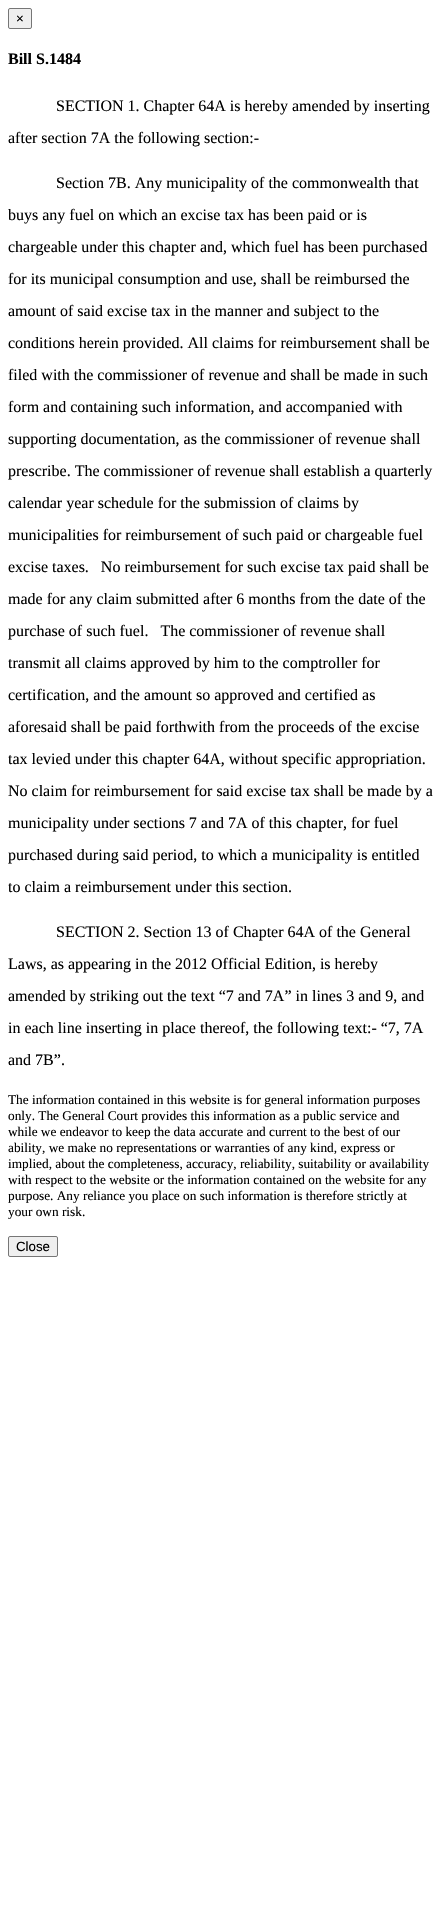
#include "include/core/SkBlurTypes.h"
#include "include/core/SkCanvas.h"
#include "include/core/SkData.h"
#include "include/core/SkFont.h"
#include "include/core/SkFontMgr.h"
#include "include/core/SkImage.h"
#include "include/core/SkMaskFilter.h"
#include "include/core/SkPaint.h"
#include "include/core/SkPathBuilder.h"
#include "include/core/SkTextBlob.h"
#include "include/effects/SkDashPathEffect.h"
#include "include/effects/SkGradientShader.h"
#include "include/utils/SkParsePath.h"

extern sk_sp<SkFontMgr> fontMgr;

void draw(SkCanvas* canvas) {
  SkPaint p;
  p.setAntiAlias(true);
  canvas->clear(SK_ColorWHITE);
  p.setColor(SkColorSetRGB(239, 239, 239));
  canvas->drawRoundRect(SkRect::MakeLTRB(8.5f, 8.5f, 31.5f, 28.5f), 1.5f, 1.5f, p);
  p.setStyle(SkPaint::kStroke_Style);
  p.setStrokeWidth(1);
  p.setColor(SkColorSetRGB(118, 118, 118));
  canvas->drawRoundRect(SkRect::MakeLTRB(8.5f, 8.5f, 31.5f, 28.5f), 1.5f, 1.5f, p);
  p.setStyle(SkPaint::kFill_Style);
  p.setColor(SkColorSetRGB(239, 239, 239));
  canvas->drawRoundRect(SkRect::MakeLTRB(8.5f, 1236.5f, 57.5f, 1256.5f), 1.5f, 1.5f, p);
  p.setStyle(SkPaint::kStroke_Style);
  p.setColor(SkColorSetRGB(118, 118, 118));
  canvas->drawRoundRect(SkRect::MakeLTRB(8.5f, 1236.5f, 57.5f, 1256.5f), 1.5f, 1.5f, p);
  SkFont font1(fontMgr->matchFamilyStyle("Liberation Sans", SkFontStyle::Normal()), 13.3f);
  font1.setSubpixel(true);
  p.setStyle(SkPaint::kFill_Style);
  p.setColor(SK_ColorBLACK);
  canvas->drawString("×", 16, 23, font1, p);
  SkFont font2(fontMgr->matchFamilyStyle("Liberation Serif", SkFontStyle::Bold()), 16);
  font2.setSubpixel(true);
  canvas->drawString("Bill S.1484", 8, 64, font2, p);
  SkFont font3(fontMgr->matchFamilyStyle("Liberation Serif", SkFontStyle::Normal()), 16);
  font3.setSubpixel(true);
  canvas->drawString("SECTION 1. Chapter 64A is hereby amended by inserting", 56, 111, font3, p);
  canvas->drawString("after section 7A the following section:-", 8, 143, font3, p);
  canvas->drawString("Section 7B. Any municipality of the commonwealth that", 56, 188, font3, p);
  canvas->drawString("buys any fuel on which an excise tax has been paid or is", 8, 220, font3, p);
  canvas->drawString("chargeable under this chapter and, which fuel has been purchased", 8, 252, font3, p);
  canvas->drawString("for its municipal consumption and use, shall be reimbursed the", 8, 284, font3, p);
  canvas->drawString("amount of said excise tax in the manner and subject to the", 8, 316, font3, p);
  canvas->drawString("conditions herein provided. All claims for reimbursement shall be", 8, 348, font3, p);
  canvas->drawString("filed with the commissioner of revenue and shall be made in such", 8, 380, font3, p);
  canvas->drawString("form and containing such information, and accompanied with", 8, 412, font3, p);
  canvas->drawString("supporting documentation, as the commissioner of revenue shall", 8, 444, font3, p);
  canvas->drawString("prescribe. The commissioner of revenue shall establish a quarterly", 8, 476, font3, p);
  canvas->drawString("calendar year schedule for the submission of claims by", 8, 508, font3, p);
  canvas->drawString("municipalities for reimbursement of such paid or chargeable fuel", 8, 540, font3, p);
  canvas->drawString("excise taxes.   No reimbursement for such excise tax paid shall be", 8, 572, font3, p);
  canvas->drawString("made for any claim submitted after 6 months from the date of the", 8, 604, font3, p);
  canvas->drawString("purchase of such fuel.   The commissioner of revenue shall", 8, 636, font3, p);
  canvas->drawString("transmit all claims approved by him to the comptroller for", 8, 668, font3, p);
  canvas->drawString("certification, and the amount so approved and certified as", 8, 700, font3, p);
  canvas->drawString("aforesaid shall be paid forthwith from the proceeds of the excise", 8, 732, font3, p);
  canvas->drawString("tax levied under this chapter 64A, without specific appropriation.", 8, 764, font3, p);
  canvas->drawString("No claim for reimbursement for said excise tax shall be made by a", 8, 796, font3, p);
  canvas->drawString("municipality under sections 7 and 7A of this chapter, for fuel", 8, 828, font3, p);
  canvas->drawString("purchased during said period, to which a municipality is entitled", 8, 860, font3, p);
  canvas->drawString("to claim a reimbursement under this section.", 8, 892, font3, p);
  canvas->drawString("SECTION 2. Section 13 of Chapter 64A of the General", 56, 937, font3, p);
  canvas->drawString("Laws, as appearing in the 2012 Official Edition, is hereby", 8, 969, font3, p);
  canvas->drawString("amended by striking out the text “7 and 7A” in lines 3 and 9, and", 8, 1001, font3, p);
  canvas->drawString("in each line inserting in place thereof, the following text:- “7, 7A", 8, 1033, font3, p);
  canvas->drawString("and 7B”.", 8, 1065, font3, p);
  SkFont font4(fontMgr->matchFamilyStyle("Liberation Serif", SkFontStyle::Normal()), 13.3f);
  font4.setSubpixel(true);
  canvas->drawString("The information contained in this website is for general information purposes", 8, 1104, font4, p);
  canvas->drawString("only. The General Court provides this information as a public service and", 8, 1120, font4, p);
  canvas->drawString("while we endeavor to keep the data accurate and current to the best of our", 8, 1136, font4, p);
  canvas->drawString("ability, we make no representations or warranties of any kind, express or", 8, 1152, font4, p);
  canvas->drawString("implied, about the completeness, accuracy, reliability, suitability or availability", 8, 1168, font4, p);
  canvas->drawString("with respect to the website or the information contained on the website for any", 8, 1184, font4, p);
  canvas->drawString("purpose. Any reliance you place on such information is therefore strictly at", 8, 1200, font4, p);
  canvas->drawString("your own risk.", 8, 1216, font4, p);
  canvas->drawString("Close", 16, 1251, font1, p);
}
